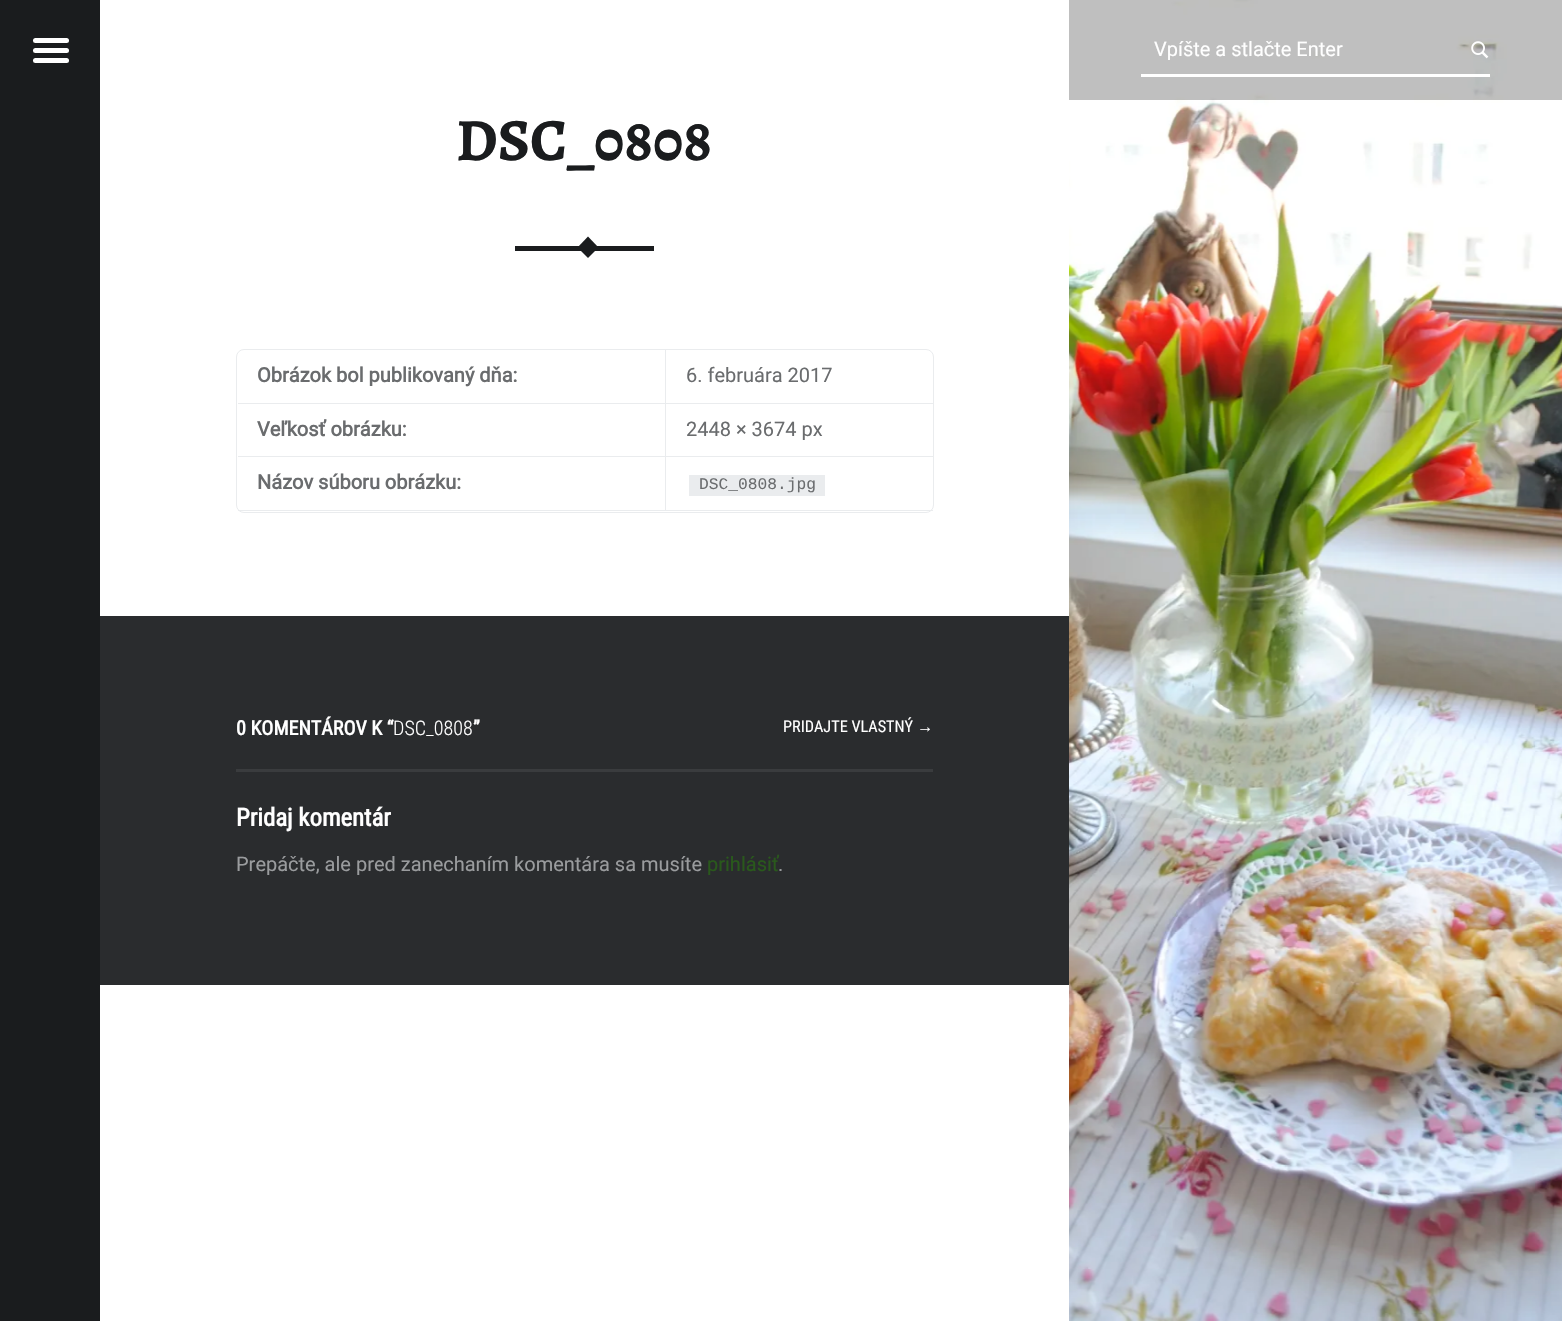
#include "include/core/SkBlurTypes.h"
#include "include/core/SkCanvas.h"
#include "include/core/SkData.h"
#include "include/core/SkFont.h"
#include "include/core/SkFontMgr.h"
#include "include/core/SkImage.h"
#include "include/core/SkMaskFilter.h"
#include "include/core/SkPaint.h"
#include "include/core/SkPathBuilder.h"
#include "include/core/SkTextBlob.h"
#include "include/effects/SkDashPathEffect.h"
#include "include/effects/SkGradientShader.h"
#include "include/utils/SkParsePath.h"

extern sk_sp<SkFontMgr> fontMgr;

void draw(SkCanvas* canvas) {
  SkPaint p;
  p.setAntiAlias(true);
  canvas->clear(SK_ColorWHITE);
  p.setColor(SkColorSetRGB(26, 28, 30));
  canvas->drawRect(SkRect::MakeLTRB(0, 0, 100, 1321), p);
  p.setColor(SK_ColorWHITE);
  canvas->drawRoundRect(SkRect::MakeLTRB(33, 38, 69, 43), 2.5f, 2.5f, p);
  canvas->drawRoundRect(SkRect::MakeLTRB(33, 48, 69, 53), 2.5f, 2.5f, p);
  canvas->drawRoundRect(SkRect::MakeLTRB(33, 58, 69, 63), 2.5f, 2.5f, p);
  canvas->drawImageRect(SkImages::DeferredFromEncodedData(SkData::MakeFromFileName("images/2.png")), SkRect::MakeLTRB(1069, 0, 1562, 1321), SkSamplingOptions());
  p.setColor(SkColorSetARGB(64, 0, 0, 0));
  canvas->drawRect(SkRect::MakeLTRB(1069, 0, 1562, 100), p);
  p.setColor(SK_ColorWHITE);
  canvas->drawRect(SkRect::MakeLTRB(1141, 74, 1490, 77), p);
  canvas->drawImageRect(SkImages::DeferredFromEncodedData(SkData::MakeFromFileName("images/1.png")), SkRect::MakeLTRB(1471, 41, 1489, 59), SkSamplingOptions());
  p.setColor(SkColorSetRGB(26, 28, 30));
  canvas->drawRect(SkRect::MakeLTRB(515, 246, 654, 251), p);
  canvas->drawPath(SkPathBuilder().moveTo(588, 236.5f).lineTo(598.5f, 247.5f).lineTo(588, 258).lineTo(577.5f, 247.5f).close().detach(), p);
  p.setStyle(SkPaint::kStroke_Style);
  p.setStrokeWidth(1);
  p.setColor(SkColorSetRGB(234, 236, 238));
  canvas->drawRoundRect(SkRect::MakeLTRB(236.5f, 349.5f, 933.5f, 512.5f), 7.5f, 7.5f, p);
  p.setStyle(SkPaint::kFill_Style);
  canvas->drawRect(SkRect::MakeLTRB(238, 403, 933, 404), p);
  canvas->drawRect(SkRect::MakeLTRB(665, 350, 666, 404), p);
  canvas->drawRect(SkRect::MakeLTRB(238, 456, 933, 457), p);
  canvas->drawRect(SkRect::MakeLTRB(665, 404, 666, 458), p);
  canvas->drawRect(SkRect::MakeLTRB(238, 510, 933, 511), p);
  canvas->drawRect(SkRect::MakeLTRB(665, 458, 666, 511), p);
  canvas->drawRect(SkRect::MakeLTRB(689, 475, 825, 496), p);
  p.setColor(SkColorSetRGB(42, 44, 46));
  canvas->drawRect(SkRect::MakeLTRB(100, 616, 1069, 985), p);
  p.setColor(SkColorSetRGB(58, 60, 62));
  canvas->drawRect(SkRect::MakeLTRB(236, 769, 933, 772), p);
  SkFont font1(fontMgr->matchFamilyStyle("Roboto", SkFontStyle::Normal()), 20);
  font1.setSubpixel(true);
  p.setColor(SK_ColorWHITE);
  canvas->drawString("Vpíšte a stlačte Enter", 1154, 56, font1, p);
  SkFont font2(fontMgr->matchFamilyStyle("Alegreya", SkFontStyle::Bold()), 60);
  font2.setSubpixel(true);
  p.setColor(SkColorSetRGB(26, 28, 30));
  canvas->drawString("DSC_0808", 456, 160, font2, p);
  SkFont font3(fontMgr->matchFamilyStyle("Roboto", SkFontStyle::Bold()), 20);
  font3.setSubpixel(true);
  p.setColor(SkColorSetRGB(106, 108, 110));
  canvas->drawString("Obrázok bol publikovaný dňa:", 257, 382, font3, p);
  canvas->drawString("6. februára 2017", 686, 382, font1, p);
  canvas->drawString("Veľkosť obrázku:", 257, 436, font3, p);
  canvas->drawString("2448 × 3674 px", 686, 436, font1, p);
  canvas->drawString("Názov súboru obrázku:", 257, 489, font3, p);
  SkFont font4(fontMgr->matchFamilyStyle("Liberation Mono", SkFontStyle::Normal()), 16.25f);
  font4.setSubpixel(true);
  canvas->drawString("DSC_0808.jpg", 699, 489, font4, p);
  SkFont font5(fontMgr->matchFamilyStyle("Roboto Condensed", SkFontStyle::Bold()), 20);
  font5.setSubpixel(true);
  p.setColor(SK_ColorWHITE);
  canvas->drawString("0 KOMENTÁROV K “", 236, 735, font5, p);
  SkFont font6(fontMgr->matchFamilyStyle("Roboto Condensed", SkFontStyle(300, SkFontStyle::kNormal_Width, SkFontStyle::kUpright_Slant)), 20);
  font6.setSubpixel(true);
  canvas->drawString("DSC_0808", 393, 735, font6, p);
  canvas->drawString("”", 473, 735, font5, p);
  SkFont font7(fontMgr->matchFamilyStyle("Roboto Condensed", SkFontStyle::Normal()), 16.25f);
  font7.setSubpixel(true);
  canvas->drawString("PRIDAJTE VLASTNÝ", 783, 732, font7, p);
  SkFont font8(fontMgr->matchFamilyStyle("Liberation Sans", SkFontStyle::Normal()), 16.25f);
  font8.setSubpixel(true);
  canvas->drawString("→", 917, 732, font8, p);
  SkFont font9(fontMgr->matchFamilyStyle("Roboto Condensed", SkFontStyle::Bold()), 24.75f);
  font9.setSubpixel(true);
  canvas->drawString("Pridaj komentár", 236, 826, font9, p);
  p.setColor(SkColorSetRGB(154, 156, 158));
  canvas->drawString("Prepáčte, ale pred zanechaním komentára sa musíte", 236, 871, font1, p);
  p.setColor(SkColorSetRGB(41, 89, 27));
  canvas->drawString("prihlásiť", 707, 871, font1, p);
  p.setColor(SkColorSetRGB(154, 156, 158));
  canvas->drawString(".", 778, 871, font1, p);
}
